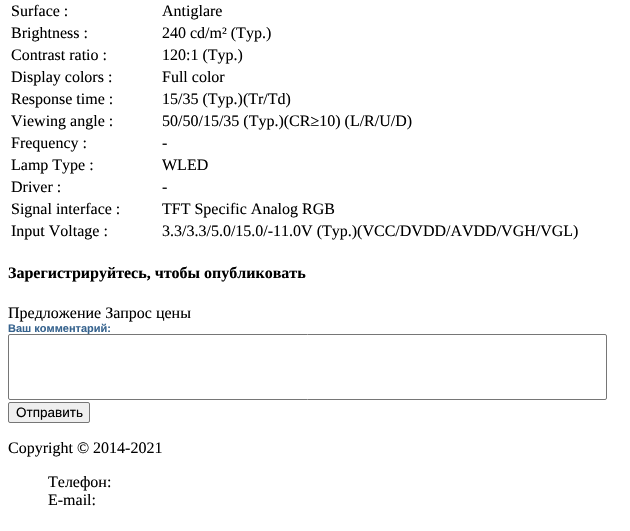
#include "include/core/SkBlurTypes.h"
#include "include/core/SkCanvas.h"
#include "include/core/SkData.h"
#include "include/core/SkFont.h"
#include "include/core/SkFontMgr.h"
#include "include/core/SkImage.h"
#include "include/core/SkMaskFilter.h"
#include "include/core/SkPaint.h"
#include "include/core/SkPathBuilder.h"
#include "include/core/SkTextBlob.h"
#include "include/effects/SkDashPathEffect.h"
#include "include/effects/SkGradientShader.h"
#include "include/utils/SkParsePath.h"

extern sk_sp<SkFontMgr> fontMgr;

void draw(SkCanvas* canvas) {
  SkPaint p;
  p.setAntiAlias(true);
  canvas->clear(SK_ColorWHITE);
  p.setColor(SkColorSetRGB(239, 239, 239));
  canvas->drawRoundRect(SkRect::MakeLTRB(8.5f, 402.5f, 89.5f, 422.5f), 1.5f, 1.5f, p);
  p.setStyle(SkPaint::kStroke_Style);
  p.setStrokeWidth(1);
  p.setColor(SkColorSetRGB(118, 118, 118));
  canvas->drawRoundRect(SkRect::MakeLTRB(8.5f, 402.5f, 89.5f, 422.5f), 1.5f, 1.5f, p);
  SkFont font1(fontMgr->matchFamilyStyle("Liberation Serif", SkFontStyle::Normal()), 16);
  font1.setSubpixel(true);
  p.setStyle(SkPaint::kFill_Style);
  p.setColor(SK_ColorBLACK);
  canvas->drawString("Surface :", 11, 16, font1, p);
  canvas->drawString("Antiglare", 162, 16, font1, p);
  canvas->drawString("Brightness :", 11, 38, font1, p);
  canvas->drawString("240 cd/m² (Typ.)", 162, 38, font1, p);
  canvas->drawString("Contrast ratio :", 11, 60, font1, p);
  canvas->drawString("120:1 (Typ.)", 162, 60, font1, p);
  canvas->drawString("Display colors :", 11, 82, font1, p);
  canvas->drawString("Full color", 162, 82, font1, p);
  canvas->drawString("Response time :", 11, 104, font1, p);
  canvas->drawString("15/35 (Typ.)(Tr/Td)", 162, 104, font1, p);
  canvas->drawString("Viewing angle :", 11, 126, font1, p);
  canvas->drawString("50/50/15/35 (Typ.)(CR≥10) (L/R/U/D)", 162, 126, font1, p);
  canvas->drawString("Frequency :", 11, 148, font1, p);
  canvas->drawString("-", 162, 148, font1, p);
  canvas->drawString("Lamp Type :", 11, 170, font1, p);
  canvas->drawString("WLED", 162, 170, font1, p);
  canvas->drawString("Driver :", 11, 192, font1, p);
  canvas->drawString("-", 162, 192, font1, p);
  canvas->drawString("Signal interface :", 11, 214, font1, p);
  canvas->drawString("TFT Specific Analog RGB", 162, 214, font1, p);
  canvas->drawString("Input Voltage :", 11, 236, font1, p);
  canvas->drawString("3.3/3.3/5.0/15.0/-11.0V (Typ.)(VCC/DVDD/AVDD/VGH/VGL)", 162, 236, font1, p);
  SkFont font2(fontMgr->matchFamilyStyle("Liberation Serif", SkFontStyle::Bold()), 16);
  font2.setSubpixel(true);
  canvas->drawString("Зарегистрируйтесь, чтобы опубликовать", 8, 278, font2, p);
  canvas->drawString("Предложение Запрос цены", 8, 318, font1, p);
  SkFont font3(fontMgr->matchFamilyStyle("Liberation Sans", SkFontStyle::Bold()), 11);
  font3.setSubpixel(true);
  p.setColor(SkColorSetRGB(54, 99, 142));
  canvas->drawString("Ваш комментарий:", 8, 332, font3, p);
  p.setColor(SK_ColorWHITE);
  canvas->drawRoundRect(SkRect::MakeLTRB(8.5f, 334.5f, 606.5f, 399.5f), 1.5f, 1.5f, p);
  p.setStyle(SkPaint::kStroke_Style);
  p.setColor(SkColorSetRGB(118, 118, 118));
  canvas->drawRoundRect(SkRect::MakeLTRB(8.5f, 334.5f, 606.5f, 399.5f), 1.5f, 1.5f, p);
  SkFont font4(fontMgr->matchFamilyStyle("Liberation Sans", SkFontStyle::Normal()), 13.5f);
  font4.setSubpixel(true);
  p.setStyle(SkPaint::kFill_Style);
  p.setColor(SK_ColorBLACK);
  canvas->drawString("Отправить", 16, 417, font4, p);
  canvas->drawString("Copyright © 2014-2021", 8, 453, font1, p);
  canvas->drawString("Телефон:", 48, 487, font1, p);
  canvas->drawString("E-mail:", 48, 505, font1, p);
}
